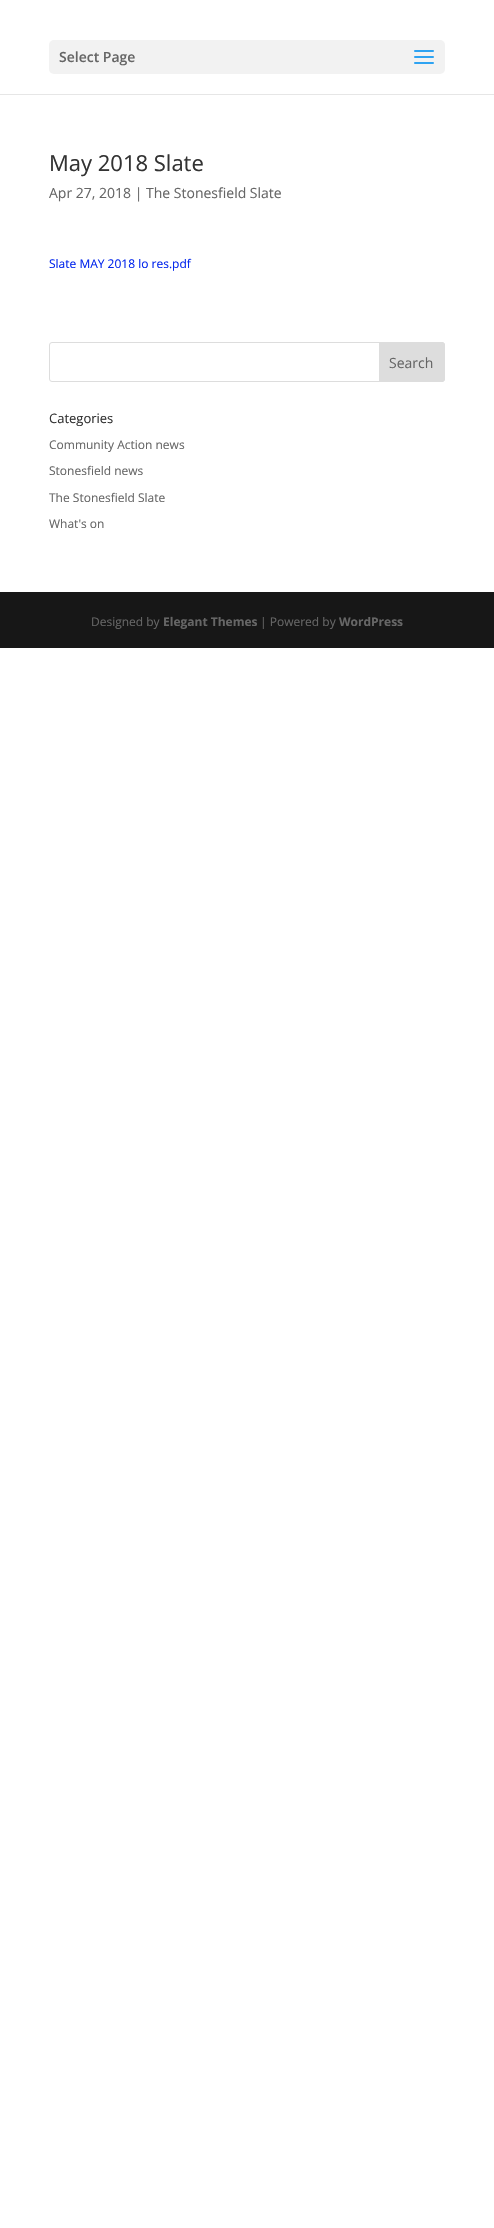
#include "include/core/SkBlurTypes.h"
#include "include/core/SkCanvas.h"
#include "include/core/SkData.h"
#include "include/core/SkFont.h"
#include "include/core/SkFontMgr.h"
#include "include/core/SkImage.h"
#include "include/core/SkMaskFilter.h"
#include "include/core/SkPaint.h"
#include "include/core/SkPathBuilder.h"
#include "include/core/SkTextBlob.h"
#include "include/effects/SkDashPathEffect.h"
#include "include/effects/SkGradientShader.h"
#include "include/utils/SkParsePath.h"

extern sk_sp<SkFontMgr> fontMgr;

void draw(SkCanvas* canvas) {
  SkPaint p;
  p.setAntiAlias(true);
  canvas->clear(SK_ColorWHITE);
  p.setColor(SkColorSetRGB(230, 230, 230));
  canvas->drawRect(SkRect::MakeLTRB(0, 94, 494, 95), p);
  p.setColor(SkColorSetRGB(242, 242, 242));
  canvas->drawRoundRect(SkRect::MakeLTRB(49, 40, 445, 74), 5, 5, p);
  canvas->drawImageRect(SkImages::DeferredFromEncodedData(SkData::MakeFromFileName("images/1.png")), SkRect::MakeLTRB(414, 50, 434, 64), SkSamplingOptions());
  p.setStyle(SkPaint::kStroke_Style);
  p.setStrokeWidth(1);
  p.setColor(SkColorSetRGB(221, 221, 221));
  canvas->drawRoundRect(SkRect::MakeLTRB(49.5f, 342.5f, 444.5f, 381.5f), 2.5f, 2.5f, p);
  p.setStyle(SkPaint::kFill_Style);
  canvas->drawPath(SkPathBuilder().moveTo(379.5f, 342.5f).lineTo(442, 342.5f).cubicTo(443.5f, 342.5f, 444.5f, 343.5f, 444.5f, 345).lineTo(444.5f, 379).cubicTo(444.5f, 380.5f, 443.5f, 381.5f, 442, 381.5f).lineTo(379.5f, 381.5f).close().detach(), p);
  p.setStyle(SkPaint::kStroke_Style);
  canvas->drawPath(SkPathBuilder().moveTo(379.5f, 342.5f).lineTo(442, 342.5f).cubicTo(443.5f, 342.5f, 444.5f, 343.5f, 444.5f, 345).lineTo(444.5f, 379).cubicTo(444.5f, 380.5f, 443.5f, 381.5f, 442, 381.5f).lineTo(379.5f, 381.5f).close().detach(), p);
  p.setStyle(SkPaint::kFill_Style);
  p.setColor(SkColorSetRGB(23, 23, 23));
  canvas->drawRect(SkRect::MakeLTRB(0, 592, 494, 648), p);
  SkFont font1(fontMgr->matchFamilyStyle("Open Sans", SkFontStyle(600, SkFontStyle::kNormal_Width, SkFontStyle::kUpright_Slant)), 14);
  font1.setSubpixel(true);
  p.setColor(SkColorSetRGB(102, 102, 102));
  canvas->drawString("Select Page", 59, 62, font1, p);
  SkFont font2(fontMgr->matchFamilyStyle("Open Sans", SkFontStyle::Normal()), 22);
  font2.setSubpixel(true);
  p.setColor(SkColorSetRGB(51, 51, 51));
  canvas->drawString("May 2018 Slate", 49, 171, font2, p);
  SkFont font3(fontMgr->matchFamilyStyle("Open Sans", SkFontStyle::Normal()), 14);
  font3.setSubpixel(true);
  p.setColor(SkColorSetRGB(102, 102, 102));
  canvas->drawString("Apr 27, 2018 | The Stonesfield Slate", 49, 198, font3, p);
  SkFont font4(fontMgr->matchFamilyStyle("Open Sans", SkFontStyle::Normal()), 12);
  font4.setSubpixel(true);
  p.setColor(SkColorSetRGB(4, 39, 237));
  canvas->drawString("Slate MAY 2018 lo res.pdf", 49, 268, font4, p);
  p.setColor(SkColorSetRGB(102, 102, 102));
  canvas->drawString("Search", 389, 368, font3, p);
  SkFont font5(fontMgr->matchFamilyStyle("Open Sans", SkFontStyle::Normal()), 13);
  font5.setSubpixel(true);
  p.setColor(SkColorSetRGB(51, 51, 51));
  canvas->drawString("Categories", 49, 423, font5, p);
  p.setColor(SkColorSetRGB(102, 102, 102));
  canvas->drawString("Community Action news", 49, 449, font4, p);
  canvas->drawString("Stonesfield news", 49, 475, font4, p);
  canvas->drawString("The Stonesfield Slate", 49, 502, font4, p);
  canvas->drawString("What's on", 49, 528, font4, p);
  canvas->drawString("Designed by", 91, 626, font4, p);
  SkFont font6(fontMgr->matchFamilyStyle("Open Sans", SkFontStyle::Bold()), 12);
  font6.setSubpixel(true);
  canvas->drawString("Elegant Themes", 163, 626, font6, p);
  canvas->drawString("| Powered by", 260, 626, font4, p);
  canvas->drawString("WordPress", 339, 626, font6, p);
}
